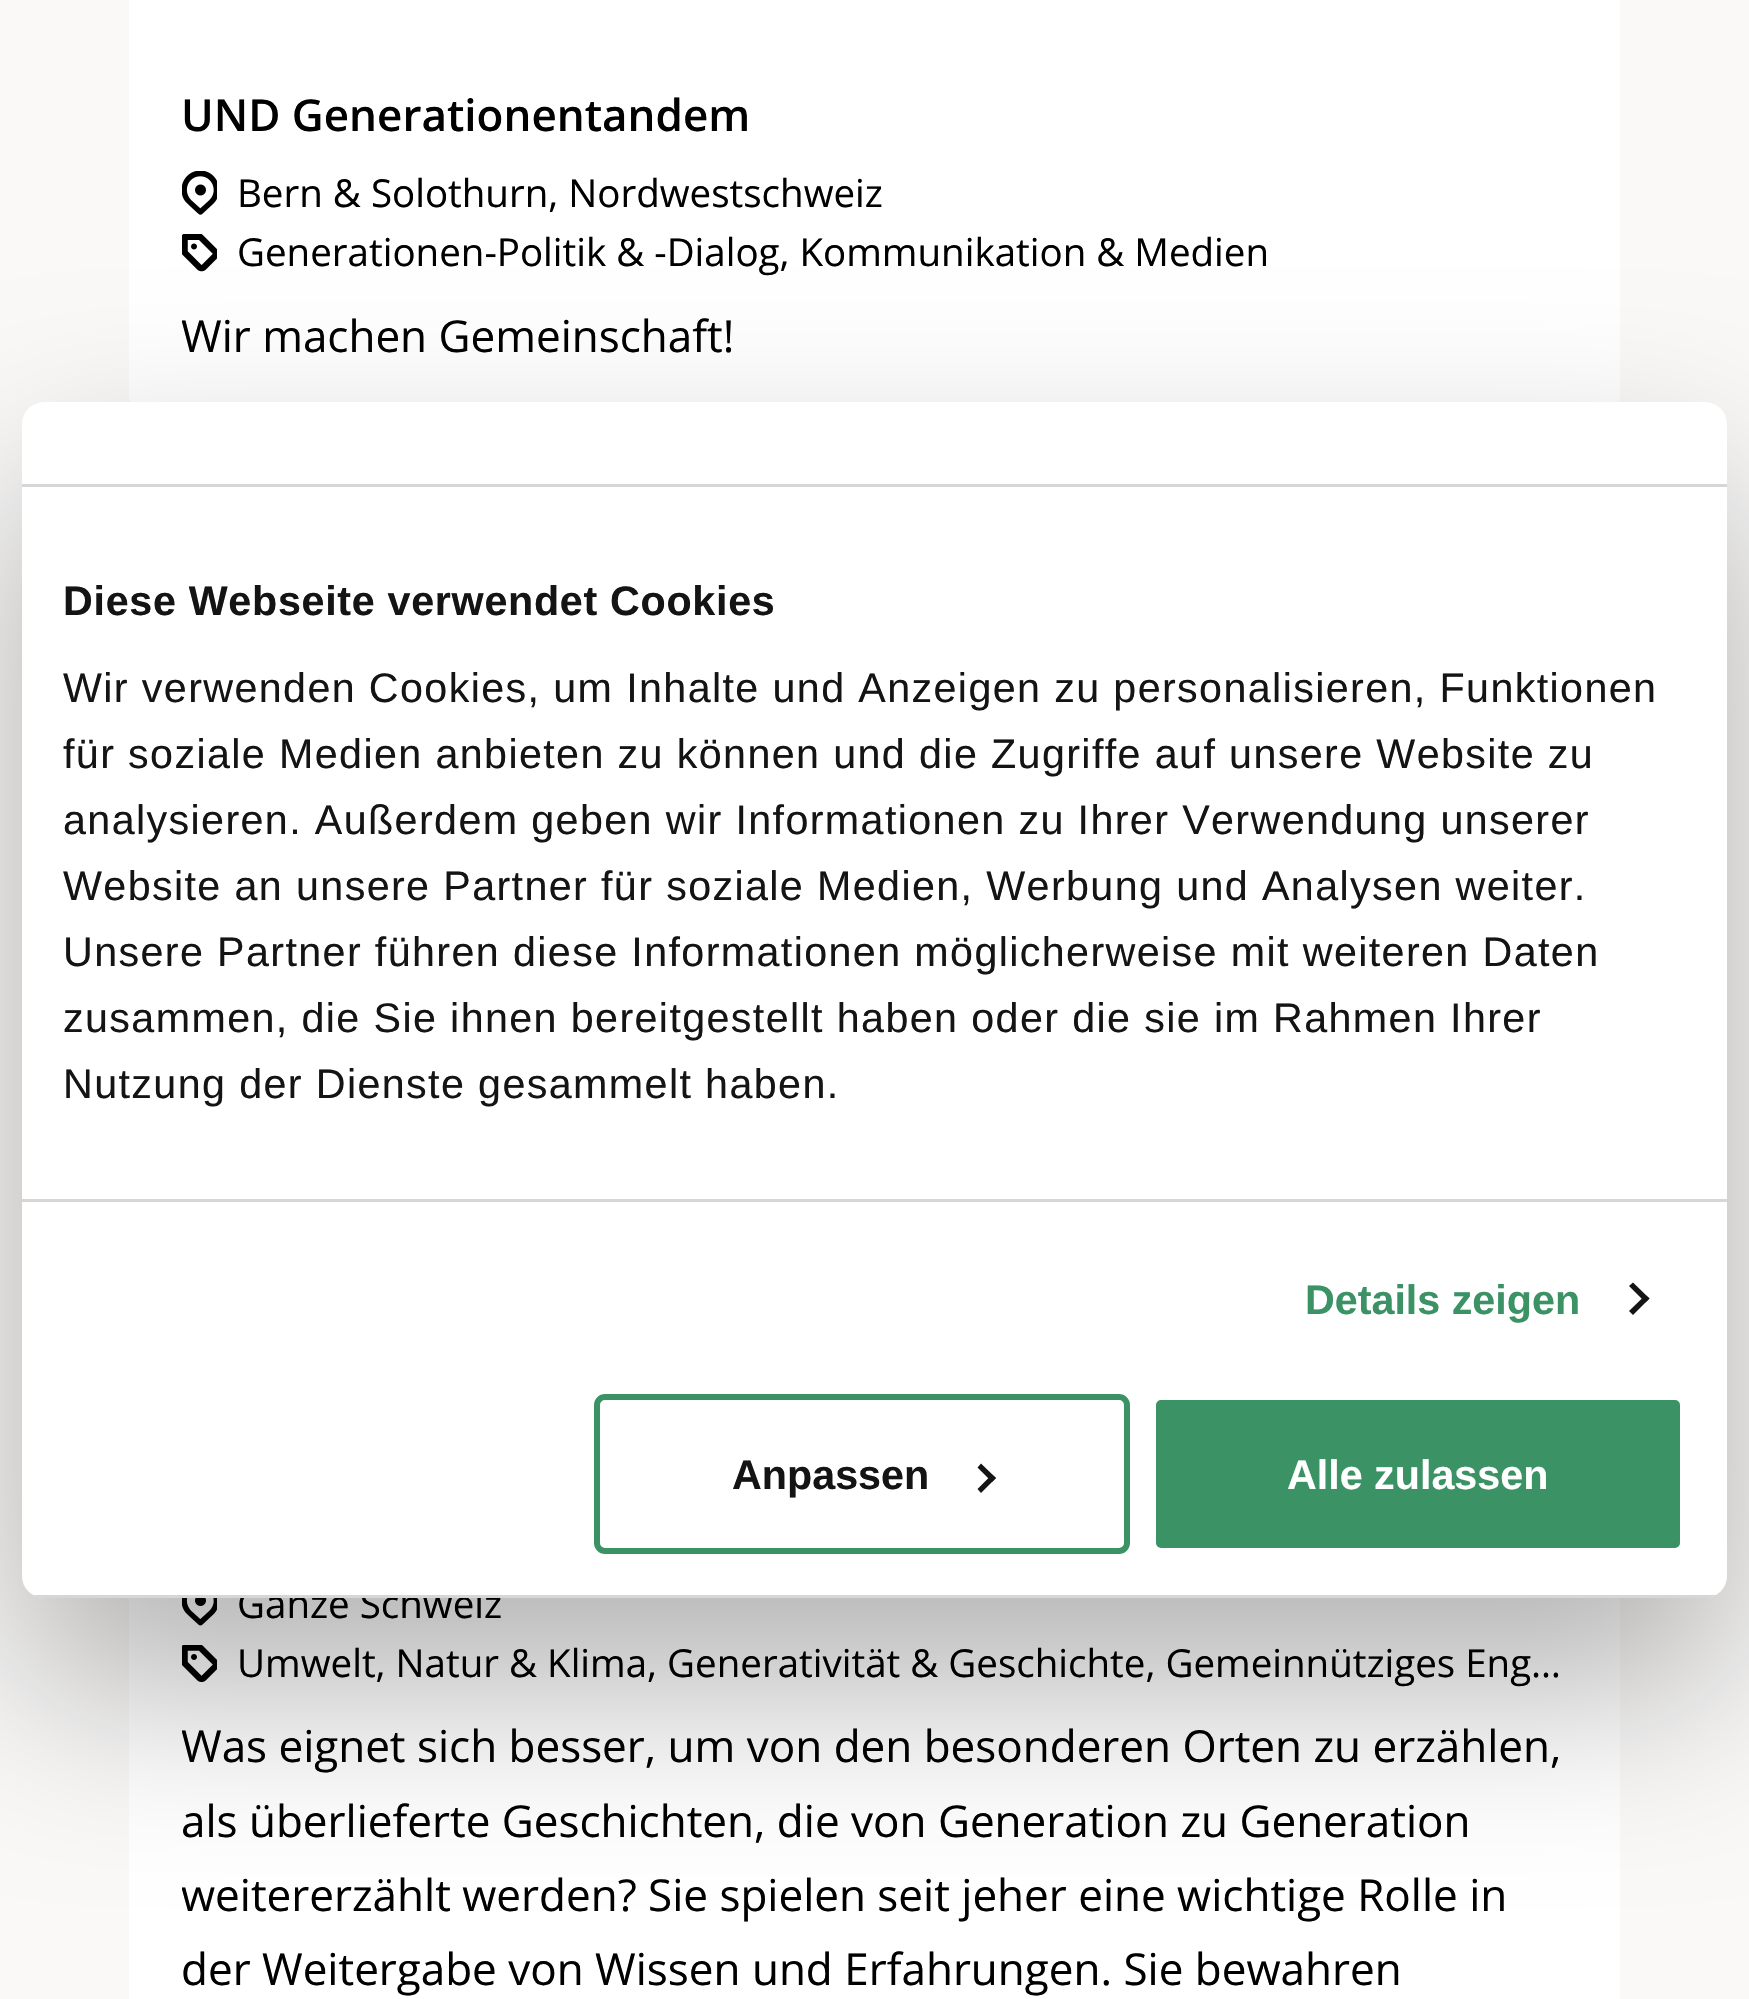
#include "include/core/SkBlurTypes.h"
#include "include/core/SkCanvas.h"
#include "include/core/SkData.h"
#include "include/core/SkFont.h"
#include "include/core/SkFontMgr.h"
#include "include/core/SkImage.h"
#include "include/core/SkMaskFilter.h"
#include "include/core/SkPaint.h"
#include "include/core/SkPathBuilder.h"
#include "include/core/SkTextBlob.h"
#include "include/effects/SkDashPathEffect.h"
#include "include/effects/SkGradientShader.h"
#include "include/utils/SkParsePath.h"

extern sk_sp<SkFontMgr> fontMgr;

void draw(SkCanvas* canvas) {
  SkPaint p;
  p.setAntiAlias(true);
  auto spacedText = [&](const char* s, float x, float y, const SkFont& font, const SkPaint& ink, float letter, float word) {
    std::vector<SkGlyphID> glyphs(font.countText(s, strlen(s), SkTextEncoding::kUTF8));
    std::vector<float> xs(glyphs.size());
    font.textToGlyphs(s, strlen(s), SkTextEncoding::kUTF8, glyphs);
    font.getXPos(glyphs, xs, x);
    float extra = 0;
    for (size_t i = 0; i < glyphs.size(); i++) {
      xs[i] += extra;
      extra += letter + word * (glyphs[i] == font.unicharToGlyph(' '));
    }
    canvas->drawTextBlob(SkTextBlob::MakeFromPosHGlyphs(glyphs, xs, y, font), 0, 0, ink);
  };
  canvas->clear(SkColorSetRGB(250, 249, 248));
  p.setColor(SK_ColorWHITE);
  canvas->drawRoundRect(SkRect::MakeLTRB(129, -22, 1620, 418), 22, 22, p);
  canvas->drawImageRect(SkImages::DeferredFromEncodedData(SkData::MakeFromFileName("images/1.png")), SkRect::MakeLTRB(182, 171, 217, 215), SkSamplingOptions());
  canvas->drawImageRect(SkImages::DeferredFromEncodedData(SkData::MakeFromFileName("images/2.png")), SkRect::MakeLTRB(182, 234, 217, 272), SkSamplingOptions());
  canvas->drawRect(SkRect::MakeLTRB(129, 1598, 1620, 1999), p);
  canvas->drawImageRect(SkImages::DeferredFromEncodedData(SkData::MakeFromFileName("images/3.png")), SkRect::MakeLTRB(182, 1598, 217, 1626), SkSamplingOptions());
  canvas->drawImageRect(SkImages::DeferredFromEncodedData(SkData::MakeFromFileName("images/4.png")), SkRect::MakeLTRB(182, 1645, 217, 1683), SkSamplingOptions());
  p.setColor(SkColorSetARGB(77, 0, 0, 0));
  p.setMaskFilter(SkMaskFilter::MakeBlur(kNormal_SkBlurStyle, 93.5f));
  canvas->drawRoundRect(SkRect::MakeLTRB(22, 490, 1727, 1686), 22, 22, p);
  p.setMaskFilter(nullptr);
  SkFont font1(fontMgr->matchFamilyStyle("Open Sans", SkFontStyle(600, SkFontStyle::kNormal_Width, SkFontStyle::kUpright_Slant)), 44);
  font1.setSubpixel(true);
  p.setColor(SK_ColorBLACK);
  canvas->drawString("UND Generationentandem", 181, 131, font1, p);
  SkFont font2(fontMgr->matchFamilyStyle("Open Sans", SkFontStyle::Normal()), 38.5f);
  font2.setSubpixel(true);
  canvas->drawString("Bern & Solothurn, Nordwestschweiz", 237, 207, font2, p);
  canvas->drawString("Generationen-Politik & -Dialog, Kommunikation & Medien", 237, 266, font2, p);
  canvas->save();
  canvas->clipRect(SkRect::MakeLTRB(182, 300, 1568, 374));
  SkFont font3(fontMgr->matchFamilyStyle("Open Sans", SkFontStyle::Normal()), 44);
  font3.setSubpixel(true);
  canvas->drawString("Wir machen Gemeinschaft!", 181, 352, font3, p);
  canvas->restore();
  canvas->drawString("Ganze Schweiz", 237, 1618, font2, p);
  canvas->drawString("Umwelt, Natur & Klima, Generativität & Geschichte, Gemeinnütziges Eng…", 237, 1677, font2, p);
  canvas->save();
  canvas->clipRect(SkRect::MakeLTRB(182, 1711, 1568, 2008));
  canvas->drawString("Was eignet sich besser, um von den besonderen Orten zu erzählen,", 181, 1762, font3, p);
  canvas->restore();
  canvas->drawString("als überlieferte Geschichten, die von Generation zu Generation", 181, 1837, font3, p);
  canvas->save();
  canvas->clipRect(SkRect::MakeLTRB(182, 1711, 1568, 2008));
  canvas->drawString("weitererzählt werden? Sie spielen seit jeher eine wichtige Rolle in", 181, 1911, font3, p);
  canvas->restore();
  canvas->drawString("der Weitergabe von Wissen und Erfahrungen. Sie bewahren", 181, 1985, font3, p);
  p.setColor(SK_ColorWHITE);
  canvas->drawRoundRect(SkRect::MakeLTRB(22, 402, 1727, 1598), 22, 22, p);
  p.setColor(SkColorSetRGB(214, 214, 214));
  canvas->drawRect(SkRect::MakeLTRB(22, 484, 1727, 487), p);
  canvas->drawRect(SkRect::MakeLTRB(22, 1199, 1727, 1202), p);
  SkFont font4(fontMgr->matchFamilyStyle("Liberation Sans", SkFontStyle::Bold()), 41.25f);
  font4.setSubpixel(true);
  p.setColor(SkColorSetRGB(20, 20, 20));
  spacedText("Diese Webseite verwendet Cookies", 63, 615, font4, p, 0.7f, 0);
  SkFont font5(fontMgr->matchFamilyStyle("Liberation Sans", SkFontStyle::Normal()), 41.25f);
  font5.setSubpixel(true);
  spacedText("Wir verwenden Cookies, um Inhalte und Anzeigen zu personalisieren, Funktionen", 63, 702, font5, p, 1.38f, 0);
  spacedText("für soziale Medien anbieten zu können und die Zugriffe auf unsere Website zu", 63, 768, font5, p, 1.38f, 0);
  spacedText("analysieren. Außerdem geben wir Informationen zu Ihrer Verwendung unserer", 63, 834, font5, p, 1.38f, 0);
  spacedText("Website an unsere Partner für soziale Medien, Werbung und Analysen weiter.", 63, 900, font5, p, 1.38f, 0);
  spacedText("Unsere Partner führen diese Informationen möglicherweise mit weiteren Daten", 63, 966, font5, p, 1.38f, 0);
  spacedText("zusammen, die Sie ihnen bereitgestellt haben oder die sie im Rahmen Ihrer", 63, 1032, font5, p, 1.38f, 0);
  spacedText("Nutzung der Dienste gesammelt haben.", 63, 1098, font5, p, 1.38f, 0);
  p.setColor(SkColorSetRGB(59, 146, 100));
  canvas->drawString("Details zeigen", 1305, 1314, font4, p);
  p.setColor(SkColorSetRGB(20, 20, 20));
  canvas->drawPath(SkPathBuilder().moveTo(1633, 1282.5f).lineTo(1649.5f, 1298.5f).lineTo(1645.5f, 1302.5f).lineTo(1629, 1286).close().detach(), p);
  canvas->drawPath(SkPathBuilder().moveTo(1645.5f, 1295).lineTo(1649.5f, 1298.5f).lineTo(1633, 1315).lineTo(1629, 1311).close().detach(), p);
  canvas->save();
  canvas->clipPath(SkPathBuilder().moveTo(44, 402).lineTo(1705, 402).cubicTo(1717, 402, 1727, 412, 1727, 424).lineTo(1727, 1576).cubicTo(1727, 1588, 1717, 1598, 1705, 1598).lineTo(44, 1598).cubicTo(32, 1598, 22, 1588, 22, 1576).lineTo(22, 424).cubicTo(22, 412, 32, 402, 44, 402).close().detach(), true);
  p.setColor(SkColorSetRGB(214, 214, 214));
  canvas->drawRect(SkRect::MakeLTRB(33, 1595, 1716, 1598), p);
  canvas->restore();
  p.setStyle(SkPaint::kStroke_Style);
  p.setStrokeWidth(6);
  p.setColor(SkColorSetRGB(59, 146, 100));
  canvas->drawRoundRect(SkRect::MakeLTRB(597, 1397, 1127, 1551), 8, 8, p);
  p.setStyle(SkPaint::kFill_Style);
  p.setColor(SkColorSetRGB(20, 20, 20));
  canvas->drawString("Anpassen", 732, 1489, font4, p);
  canvas->drawPath(SkPathBuilder().moveTo(981, 1463.5f).lineTo(996, 1478).lineTo(992, 1482).lineTo(977.5f, 1467.5f).close().detach(), p);
  canvas->drawPath(SkPathBuilder().moveTo(992, 1474.5f).lineTo(996, 1478).lineTo(981, 1493).lineTo(977.5f, 1489).close().detach(), p);
  p.setColor(SkColorSetRGB(59, 146, 100));
  canvas->drawRoundRect(SkRect::MakeLTRB(1153, 1397, 1683, 1551), 8, 8, p);
  p.setStyle(SkPaint::kStroke_Style);
  p.setColor(SK_ColorWHITE);
  canvas->drawRoundRect(SkRect::MakeLTRB(1153, 1397, 1683, 1551), 8, 8, p);
  p.setStyle(SkPaint::kFill_Style);
  canvas->drawString("Alle zulassen", 1287, 1489, font4, p);
}
